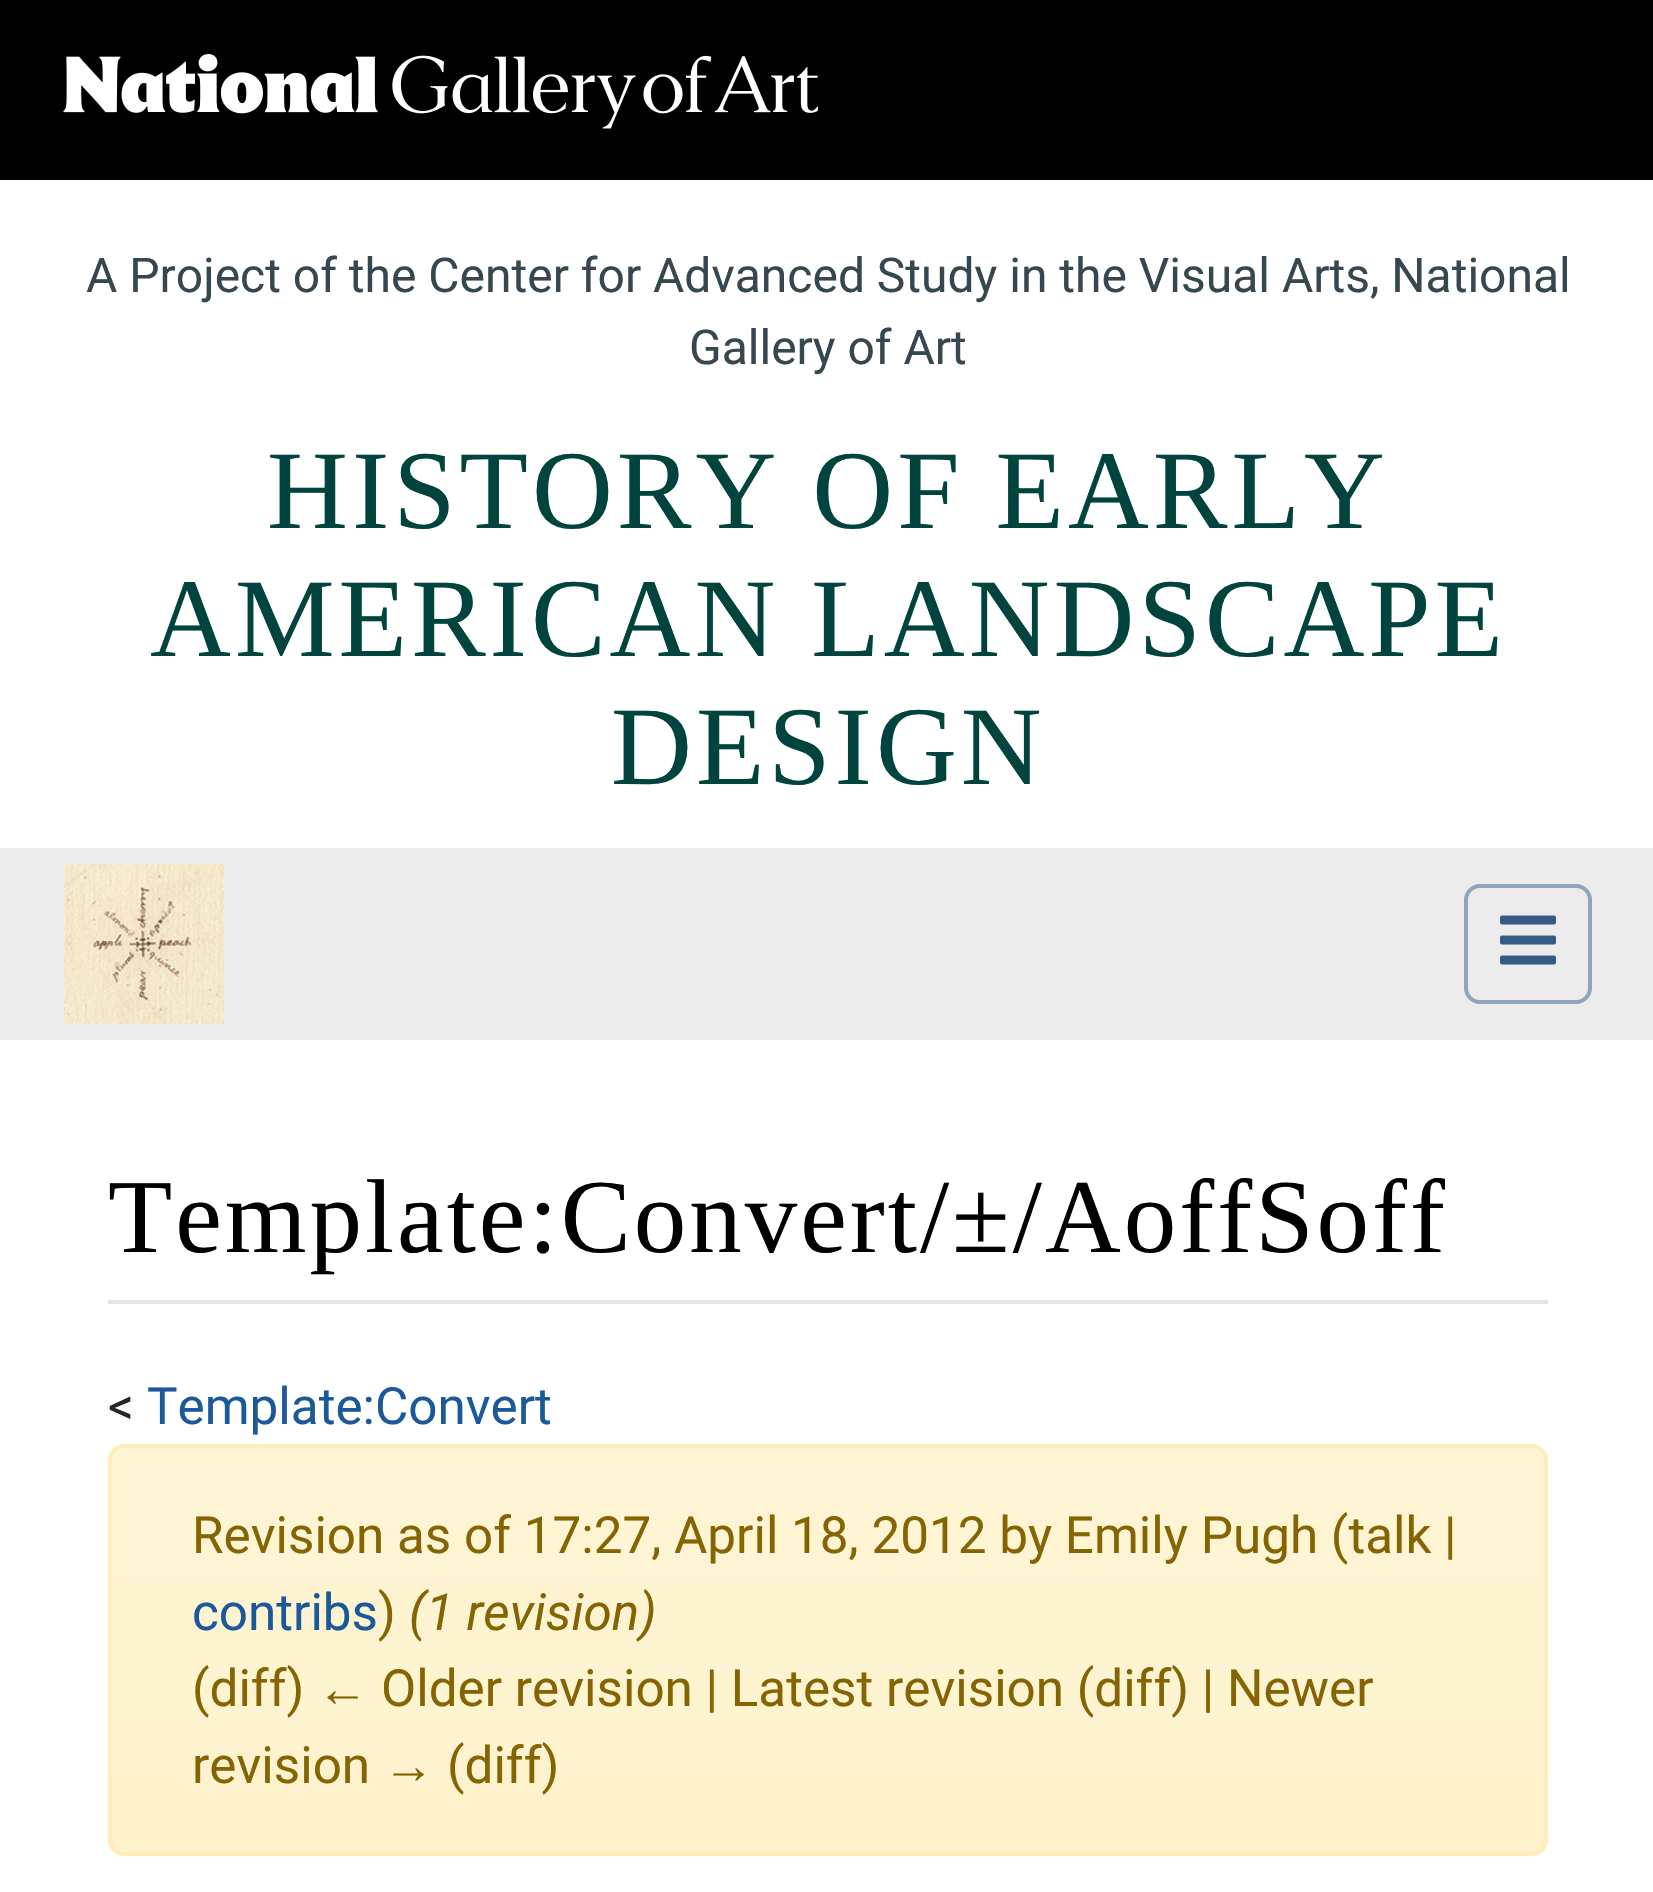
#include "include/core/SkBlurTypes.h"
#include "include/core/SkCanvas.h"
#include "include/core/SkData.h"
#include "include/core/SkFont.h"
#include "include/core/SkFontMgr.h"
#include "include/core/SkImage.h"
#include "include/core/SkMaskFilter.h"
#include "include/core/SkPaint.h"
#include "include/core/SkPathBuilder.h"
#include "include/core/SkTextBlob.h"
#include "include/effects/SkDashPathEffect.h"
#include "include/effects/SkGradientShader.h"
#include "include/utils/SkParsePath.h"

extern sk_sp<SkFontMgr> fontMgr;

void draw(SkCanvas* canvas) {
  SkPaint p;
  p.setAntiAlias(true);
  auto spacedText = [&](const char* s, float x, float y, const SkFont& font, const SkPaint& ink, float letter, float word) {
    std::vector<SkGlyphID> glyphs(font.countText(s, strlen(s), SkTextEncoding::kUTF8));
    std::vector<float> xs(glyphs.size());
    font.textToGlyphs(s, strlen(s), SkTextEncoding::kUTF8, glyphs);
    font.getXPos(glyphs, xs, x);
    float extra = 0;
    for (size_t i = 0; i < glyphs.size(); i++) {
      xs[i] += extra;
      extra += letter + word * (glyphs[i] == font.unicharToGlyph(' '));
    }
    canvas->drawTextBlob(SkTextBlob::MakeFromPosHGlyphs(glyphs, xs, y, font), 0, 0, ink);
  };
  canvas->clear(SK_ColorWHITE);
  p.setColor(SK_ColorBLACK);
  canvas->drawRect(SkRect::MakeLTRB(0, 0, 1653, 180), p);
  canvas->drawImageRect(SkImages::DeferredFromEncodedData(SkData::MakeFromFileName("images/1.png")), SkRect::MakeLTRB(63, 54, 819, 129), SkSamplingOptions());
  p.setColor(SkColorSetRGB(236, 236, 236));
  canvas->drawRect(SkRect::MakeLTRB(0, 848, 1653, 1040), p);
  canvas->drawImageRect(SkImages::DeferredFromEncodedData(SkData::MakeFromFileName("images/2.png")), SkRect::MakeLTRB(64, 864, 224, 1024), SkSamplingOptions());
  p.setStyle(SkPaint::kStroke_Style);
  p.setStrokeWidth(4);
  p.setColor(SkColorSetRGB(145, 164, 184));
  canvas->drawRoundRect(SkRect::MakeLTRB(1466, 886, 1590, 1002), 14, 14, p);
  canvas->drawImageRect(SkImages::DeferredFromEncodedData(SkData::MakeFromFileName("images/3.png")), SkRect::MakeLTRB(1500, 915, 1556, 965), SkSamplingOptions());
  p.setStyle(SkPaint::kFill_Style);
  p.setColor(SkColorSetRGB(230, 230, 230));
  canvas->drawRect(SkRect::MakeLTRB(108, 1300, 1548, 1304), p);
  canvas->save();
  canvas->clipPath(SkPathBuilder().moveTo(124, 1444).lineTo(1532, 1444).cubicTo(1541, 1444, 1548, 1451, 1548, 1460).lineTo(1548, 1840).cubicTo(1548, 1849, 1541, 1856, 1532, 1856).lineTo(124, 1856).cubicTo(115, 1856, 108, 1849, 108, 1840).lineTo(108, 1460).cubicTo(108, 1451, 115, 1444, 124, 1444).close().detach(), true);
  {
    const SkColor colors[] = {SkColorSetRGB(255, 245, 213), SkColorSetRGB(255, 243, 205)};
    const float stops[] = {0, 1};
    const SkPoint ends[] = {{828, 1448}, {828, 1852}};
    p.setShader(SkGradientShader::MakeLinear(ends, colors, stops, 2, SkTileMode::kClamp));
    p.setAlpha(255);
  }
  canvas->drawRect(SkRect::MakeLTRB(108, 1448, 1548, 1852), p);
  canvas->restore();
  p.setStyle(SkPaint::kStroke_Style);
  p.setShader(nullptr);
  p.setColor(SkColorSetRGB(255, 238, 186));
  canvas->drawRoundRect(SkRect::MakeLTRB(110, 1446, 1546, 1854), 14, 14, p);
  SkFont font1(fontMgr->matchFamilyStyle("Roboto", SkFontStyle::Normal()), 48);
  font1.setSubpixel(true);
  p.setStyle(SkPaint::kFill_Style);
  p.setColor(SkColorSetRGB(55, 71, 79));
  canvas->drawString("A Project of the Center for Advanced Study in the Visual Arts, National", 86, 292, font1, p);
  canvas->drawString("Gallery of Art", 689, 364, font1, p);
  SkFont font2(fontMgr->matchFamilyStyle("Liberation Serif", SkFontStyle::Normal()), 112);
  font2.setSubpixel(true);
  p.setColor(SkColorSetRGB(1, 68, 62));
  spacedText("HISTORY OF EARLY", 267, 528, font2, p, 4, 0);
  spacedText("AMERICAN LANDSCAPE", 150, 656, font2, p, 4, 0);
  spacedText("DESIGN", 611, 784, font2, p, 4, 0);
  SkFont font3(fontMgr->matchFamilyStyle("Liberation Serif", SkFontStyle::Normal()), 105);
  font3.setSubpixel(true);
  p.setColor(SK_ColorBLACK);
  spacedText("Template:Convert/±/AoffSoff", 108, 1252, font3, p, 3, 0);
  SkFont font4(fontMgr->matchFamilyStyle("Roboto", SkFontStyle::Normal()), 51.2f);
  font4.setSubpixel(true);
  p.setColor(SkColorSetRGB(37, 37, 37));
  canvas->drawString("<", 108, 1424, font4, p);
  p.setColor(SkColorSetRGB(27, 89, 155));
  canvas->drawString("Template:Convert", 147, 1424, font4, p);
  p.setColor(SkColorSetRGB(133, 100, 4));
  canvas->drawString("Revision as of 17:27, April 18, 2012 by Emily Pugh (talk |", 192, 1553, font4, p);
  p.setColor(SkColorSetRGB(27, 89, 155));
  canvas->drawString("contribs", 192, 1630, font4, p);
  p.setColor(SkColorSetRGB(133, 100, 4));
  canvas->drawString(")", 378, 1630, font4, p);
  SkFont font5(fontMgr->matchFamilyStyle("Roboto", SkFontStyle::Italic()), 51.2f);
  font5.setSubpixel(true);
  canvas->drawString("(1 revision)", 409, 1630, font5, p);
  canvas->drawString("(diff)", 192, 1706, font4, p);
  SkFont font6(fontMgr->matchFamilyStyle("Liberation Sans", SkFontStyle::Normal()), 51.2f);
  font6.setSubpixel(true);
  canvas->drawString("←", 317, 1706, font6, p);
  canvas->drawString("Older revision | Latest revision (diff) | Newer", 381, 1706, font4, p);
  canvas->drawString("revision", 192, 1783, font4, p);
  canvas->drawString("→", 383, 1783, font6, p);
  canvas->drawString("(diff)", 447, 1783, font4, p);
}
